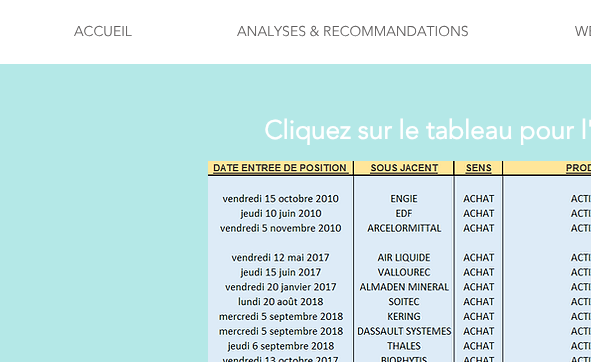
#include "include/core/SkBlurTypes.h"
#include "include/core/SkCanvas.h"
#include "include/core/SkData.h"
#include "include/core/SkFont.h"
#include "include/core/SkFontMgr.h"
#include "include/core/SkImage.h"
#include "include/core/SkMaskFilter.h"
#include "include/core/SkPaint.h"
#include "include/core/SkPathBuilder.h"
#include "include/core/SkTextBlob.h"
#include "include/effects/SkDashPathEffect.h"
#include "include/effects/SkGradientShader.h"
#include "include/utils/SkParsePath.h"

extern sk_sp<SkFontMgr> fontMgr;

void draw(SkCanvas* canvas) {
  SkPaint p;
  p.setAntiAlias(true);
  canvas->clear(SkColorSetRGB(180, 232, 231));
  p.setColor(SK_ColorWHITE);
  canvas->drawRect(SkRect::MakeLTRB(0, 0, 591, 64), p);
  canvas->drawImageRect(SkImages::DeferredFromEncodedData(SkData::MakeFromFileName("images/1.png")), SkRect::MakeLTRB(208, 161, 591, 362), SkSamplingOptions());
  SkFont font1(fontMgr->matchFamilyStyle("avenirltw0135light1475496", SkFontStyle(300, SkFontStyle::kNormal_Width, SkFontStyle::kUpright_Slant)), 14);
  font1.setSubpixel(true);
  p.setColor(SkColorSetRGB(96, 94, 94));
  canvas->drawString("ACCUEIL", 74, 36, font1, p);
  canvas->drawString("ANALYSES & RECOMMANDATIONS", 237, 36, font1, p);
  canvas->drawString("WE", 575, 36, font1, p);
  SkFont font2(fontMgr->matchFamilyStyle("avenirltw0135light1475496", SkFontStyle::Bold()), 26);
  font2.setSubpixel(true);
  p.setColor(SK_ColorWHITE);
  canvas->drawString("Cliquez sur le tableau pour l'", 264, 139, font2, p);
}
